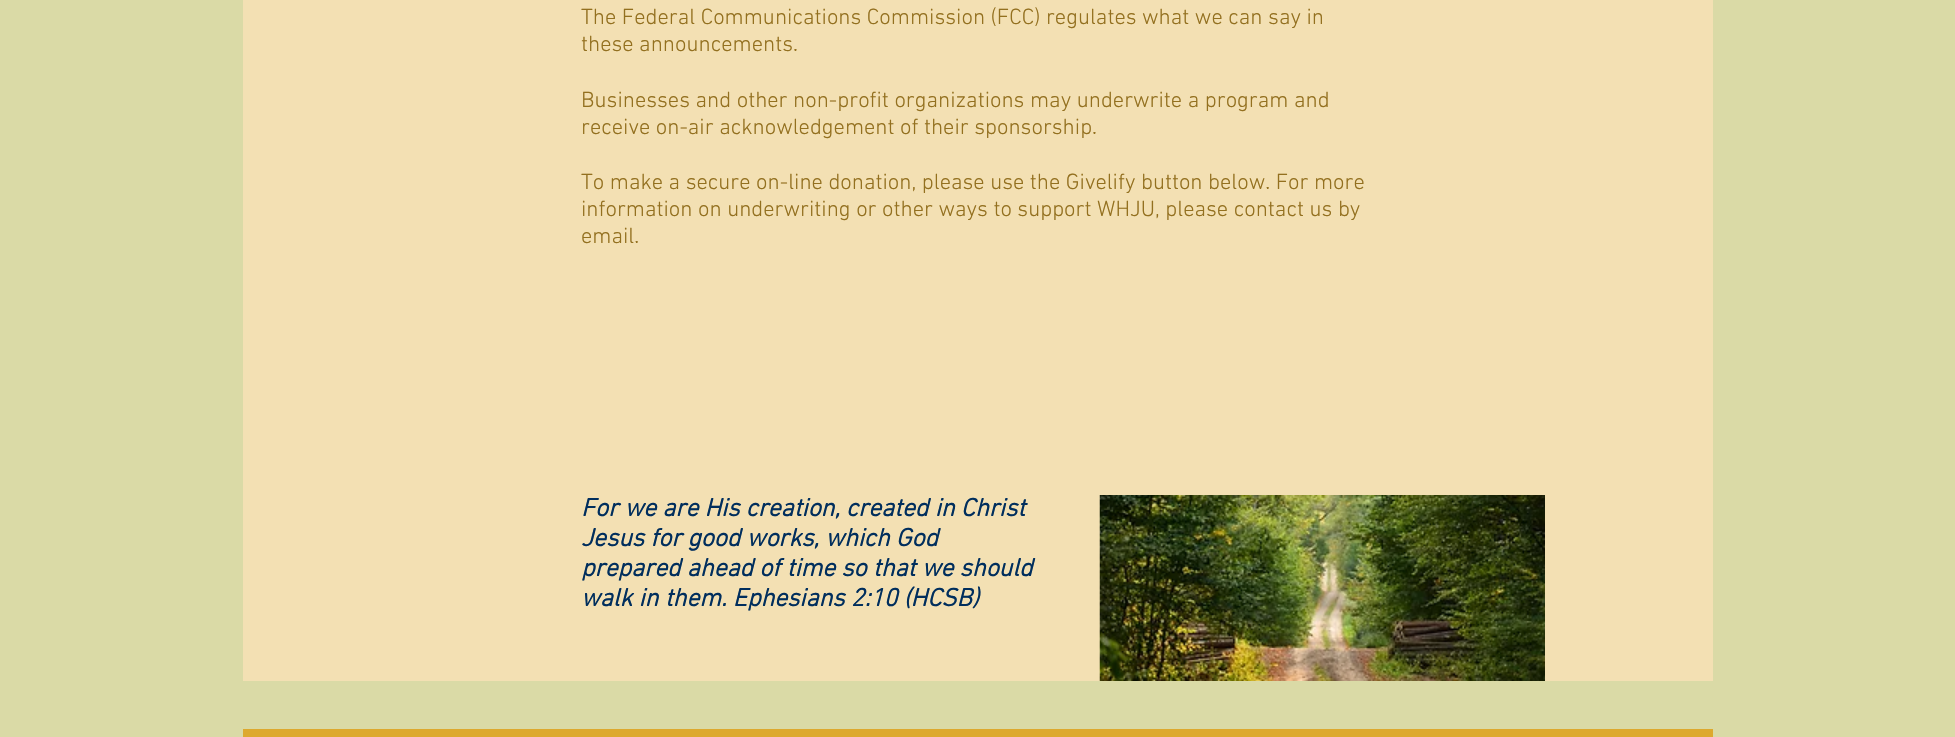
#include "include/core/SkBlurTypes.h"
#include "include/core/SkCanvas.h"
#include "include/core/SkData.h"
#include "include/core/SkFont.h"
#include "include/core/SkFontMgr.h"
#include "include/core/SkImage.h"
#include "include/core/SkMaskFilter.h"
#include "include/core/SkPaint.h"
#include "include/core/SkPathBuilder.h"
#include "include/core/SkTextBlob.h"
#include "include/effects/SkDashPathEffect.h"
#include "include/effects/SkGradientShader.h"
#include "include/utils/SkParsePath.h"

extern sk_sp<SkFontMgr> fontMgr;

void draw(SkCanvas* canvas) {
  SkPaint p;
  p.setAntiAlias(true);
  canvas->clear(SkColorSetRGB(218, 218, 166));
  p.setColor(SkColorSetRGB(243, 224, 179));
  canvas->drawRect(SkRect::MakeLTRB(243, 0, 1713, 681), p);
  canvas->drawImageRect(SkImages::DeferredFromEncodedData(SkData::MakeFromFileName("images/1.png")), SkRect::MakeLTRB(1099, 495, 1545, 681), SkSamplingOptions());
  p.setColor(SkColorSetRGB(221, 169, 46));
  canvas->drawRect(SkRect::MakeLTRB(243, 729, 1713, 737), p);
  SkFont font1(fontMgr->matchFamilyStyle("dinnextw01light", SkFontStyle(300, SkFontStyle::kNormal_Width, SkFontStyle::kUpright_Slant)), 22.5f);
  font1.setSubpixel(true);
  p.setColor(SkColorSetRGB(147, 112, 31));
  canvas->drawString("The Federal Communications Commission (FCC) regulates what we can say in", 581, 24, font1, p);
  canvas->drawString("these announcements.", 581, 51, font1, p);
  canvas->drawString("Businesses and other non-profit organizations may underwrite a program and", 581, 107, font1, p);
  canvas->drawString("receive on-air acknowledgement of their sponsorship.", 581, 134, font1, p);
  canvas->drawString("To make a secure on-line donation, please use the Givelify button below. For more", 581, 189, font1, p);
  canvas->drawString("information on underwriting or other ways to support WHJU, please contact us by", 581, 216, font1, p);
  canvas->drawString("email.", 581, 243, font1, p);
  SkFont font2(fontMgr->matchFamilyStyle("dinnextw01light", SkFontStyle::BoldItalic()), 25.5f);
  font2.setSubpixel(true);
  p.setColor(SkColorSetRGB(0, 46, 93));
  canvas->drawString("For we are His creation, created in Christ", 581, 516, font2, p);
  canvas->drawString("Jesus for good works, which God", 581, 546, font2, p);
  canvas->drawString("prepared ahead of time so that we should", 581, 576, font2, p);
  canvas->drawString("walk in them. Ephesians 2:10 (HCSB)", 581, 606, font2, p);
}
